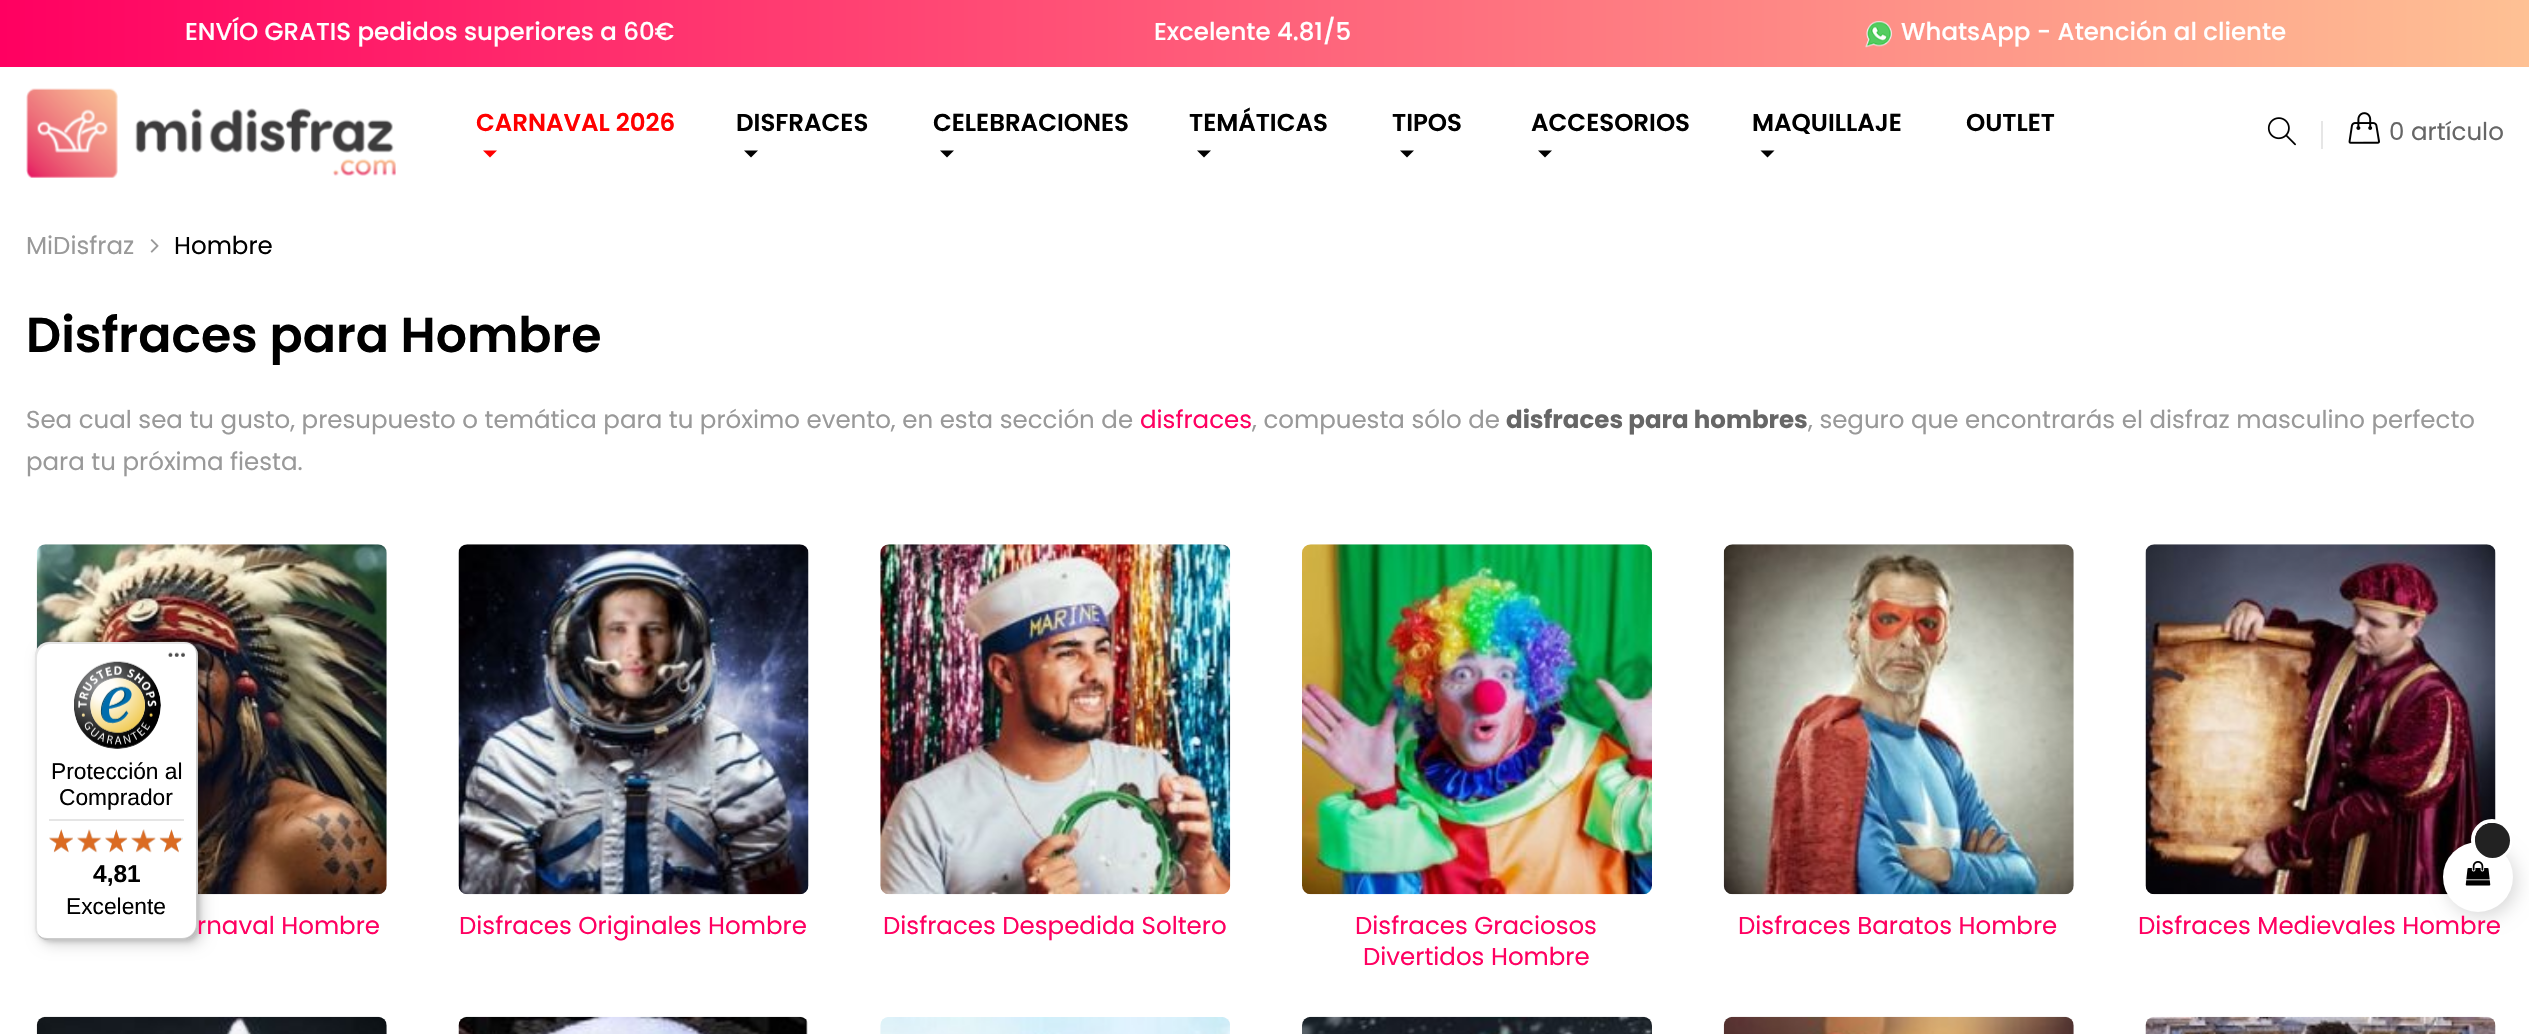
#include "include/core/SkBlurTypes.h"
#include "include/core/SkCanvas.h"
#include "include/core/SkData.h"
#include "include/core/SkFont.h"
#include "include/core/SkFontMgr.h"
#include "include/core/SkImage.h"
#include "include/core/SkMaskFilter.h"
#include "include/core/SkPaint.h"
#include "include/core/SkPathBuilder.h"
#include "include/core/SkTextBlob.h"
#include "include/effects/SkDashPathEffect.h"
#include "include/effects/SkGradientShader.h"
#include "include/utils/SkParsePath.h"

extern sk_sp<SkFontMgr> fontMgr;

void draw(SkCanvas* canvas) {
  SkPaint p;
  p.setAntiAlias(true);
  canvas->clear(SK_ColorWHITE);
  {
    const SkColor colors[] = {SkColorSetRGB(255, 0, 97), SkColorSetRGB(254, 193, 148)};
    const float stops[] = {0, 1};
    const SkPoint ends[] = {{0, 33}, {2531, 33}};
    p.setShader(SkGradientShader::MakeLinear(ends, colors, stops, 2, SkTileMode::kClamp));
    p.setAlpha(255);
  }
  canvas->drawRect(SkRect::MakeLTRB(0, 0, 2529, 67), p);
  canvas->drawImageRect(SkImages::DeferredFromEncodedData(SkData::MakeFromFileName("images/1.png")), SkRect::MakeLTRB(1865, 21, 1892, 48), SkSamplingOptions());
  canvas->drawImageRect(SkImages::DeferredFromEncodedData(SkData::MakeFromFileName("images/2.png")), SkRect::MakeLTRB(26, 88, 396, 178), SkSamplingOptions());
  p.setShader(nullptr);
  p.setColor(SkColorSetRGB(255, 0, 0));
  canvas->drawPath(SkPathBuilder().moveTo(483, 150.5f).lineTo(497, 150.5f).lineTo(490, 157.5f).close().detach(), p);
  p.setColor(SK_ColorBLACK);
  canvas->drawPath(SkPathBuilder().moveTo(744, 150.5f).lineTo(758, 150.5f).lineTo(751, 157.5f).close().detach(), p);
  canvas->drawPath(SkPathBuilder().moveTo(940, 150.5f).lineTo(954, 150.5f).lineTo(947, 157.5f).close().detach(), p);
  canvas->drawPath(SkPathBuilder().moveTo(1197, 150.5f).lineTo(1211, 150.5f).lineTo(1204, 157.5f).close().detach(), p);
  canvas->drawPath(SkPathBuilder().moveTo(1400, 150.5f).lineTo(1414, 150.5f).lineTo(1407, 157.5f).close().detach(), p);
  canvas->drawPath(SkPathBuilder().moveTo(1538, 150.5f).lineTo(1552, 150.5f).lineTo(1545, 157.5f).close().detach(), p);
  canvas->drawPath(SkPathBuilder().moveTo(1760.5f, 150.5f).lineTo(1774.5f, 150.5f).lineTo(1767.5f, 157.5f).close().detach(), p);
  canvas->drawImageRect(SkImages::DeferredFromEncodedData(SkData::MakeFromFileName("images/3.png")), SkRect::MakeLTRB(2267, 117, 2296, 146), SkSamplingOptions());
  p.setColor(SkColorSetRGB(230, 230, 230));
  canvas->drawRect(SkRect::MakeLTRB(2321, 121, 2323, 149), p);
  canvas->drawImageRect(SkImages::DeferredFromEncodedData(SkData::MakeFromFileName("images/4.png")), SkRect::MakeLTRB(2348, 112, 2380, 144), SkSamplingOptions());
  canvas->drawImageRect(SkImages::DeferredFromEncodedData(SkData::MakeFromFileName("images/5.png")), SkRect::MakeLTRB(150, 239, 159, 253), SkSamplingOptions());
  canvas->drawImageRect(SkImages::DeferredFromEncodedData(SkData::MakeFromFileName("images/6.png")), SkRect::MakeLTRB(36, 544, 387, 895), SkSamplingOptions());
  canvas->drawImageRect(SkImages::DeferredFromEncodedData(SkData::MakeFromFileName("images/7.png")), SkRect::MakeLTRB(458, 544, 809, 895), SkSamplingOptions());
  canvas->drawImageRect(SkImages::DeferredFromEncodedData(SkData::MakeFromFileName("images/8.png")), SkRect::MakeLTRB(880, 544, 1231, 895), SkSamplingOptions());
  canvas->drawImageRect(SkImages::DeferredFromEncodedData(SkData::MakeFromFileName("images/9.png")), SkRect::MakeLTRB(1302, 544, 1652, 895), SkSamplingOptions());
  canvas->drawImageRect(SkImages::DeferredFromEncodedData(SkData::MakeFromFileName("images/10.png")), SkRect::MakeLTRB(1723, 544, 2074, 895), SkSamplingOptions());
  canvas->drawImageRect(SkImages::DeferredFromEncodedData(SkData::MakeFromFileName("images/11.png")), SkRect::MakeLTRB(2145, 544, 2496, 895), SkSamplingOptions());
  canvas->drawImageRect(SkImages::DeferredFromEncodedData(SkData::MakeFromFileName("images/12.png")), SkRect::MakeLTRB(36, 1016, 387, 1034), SkSamplingOptions());
  canvas->drawImageRect(SkImages::DeferredFromEncodedData(SkData::MakeFromFileName("images/13.png")), SkRect::MakeLTRB(458, 1016, 808, 1034), SkSamplingOptions());
  canvas->drawImageRect(SkImages::DeferredFromEncodedData(SkData::MakeFromFileName("images/14.png")), SkRect::MakeLTRB(880, 1017, 1230, 1034), SkSamplingOptions());
  canvas->drawImageRect(SkImages::DeferredFromEncodedData(SkData::MakeFromFileName("images/15.png")), SkRect::MakeLTRB(1302, 1016, 1652, 1034), SkSamplingOptions());
  canvas->drawImageRect(SkImages::DeferredFromEncodedData(SkData::MakeFromFileName("images/16.png")), SkRect::MakeLTRB(1723, 1016, 2074, 1034), SkSamplingOptions());
  canvas->drawImageRect(SkImages::DeferredFromEncodedData(SkData::MakeFromFileName("images/17.png")), SkRect::MakeLTRB(2145, 1016, 2496, 1034), SkSamplingOptions());
  p.setColor(SkColorSetARGB(38, 0, 0, 0));
  p.setMaskFilter(SkMaskFilter::MakeBlur(kNormal_SkBlurStyle, 7));
  canvas->drawRoundRect(SkRect::MakeLTRB(40, 648, 203, 945), 14, 14, p);
  p.setMaskFilter(nullptr);
  p.setMaskFilter(SkMaskFilter::MakeBlur(kNormal_SkBlurStyle, 2));
  canvas->drawRoundRect(SkRect::MakeLTRB(37, 644, 200, 942), 14, 14, p);
  p.setMaskFilter(nullptr);
  p.setColor(SK_ColorWHITE);
  canvas->drawRoundRect(SkRect::MakeLTRB(35, 642, 198, 940), 14, 14, p);
  p.setColor(SkColorSetARGB(26, 0, 0, 0));
  canvas->drawPath(SkPathBuilder().moveTo(51, 644).lineTo(186, 644).cubicTo(189, 644, 193, 645, 195, 648).cubicTo(193, 644, 189, 642, 184, 642).lineTo(49, 642).cubicTo(41, 642, 35, 648, 35, 656).lineTo(35, 926).cubicTo(35, 931, 37, 935, 41, 937).cubicTo(38, 935, 37, 931, 37, 928).lineTo(37, 658).cubicTo(37, 650, 43, 644, 51, 644).close().detach(), p);
  p.setColor(SkColorSetARGB(51, 0, 0, 0));
  canvas->drawPath(SkPathBuilder().moveTo(38, 934).cubicTo(40, 938, 44, 940, 49, 940).lineTo(184, 940).cubicTo(192, 940, 198, 934, 198, 926).lineTo(198, 656).cubicTo(198, 651, 196, 647, 192, 645).cubicTo(195, 647, 196, 651, 196, 654).lineTo(196, 924).cubicTo(196, 932, 190, 938, 182, 938).lineTo(47, 938).cubicTo(44, 938, 40, 937, 38, 934).close().detach(), p);
  p.setColor(SkColorSetARGB(51, 50, 50, 50));
  canvas->drawPath(SkPathBuilder().moveTo(38, 934).cubicTo(40, 938, 44, 940, 49, 940).lineTo(184, 940).cubicTo(192, 940, 198, 934, 198, 926).lineTo(198, 656).cubicTo(198, 651, 196, 647, 192, 645).cubicTo(195, 647, 197, 651, 197, 655).lineTo(197, 925).cubicTo(197, 932, 190, 939, 183, 939).lineTo(48, 939).cubicTo(44, 939, 40, 937, 38, 934).close().detach(), p);
  p.setColor(SkColorSetARGB(77, 255, 255, 255));
  canvas->drawPath(SkPathBuilder().moveTo(40, 936).cubicTo(42, 939, 45, 940, 49, 940).lineTo(184, 940).cubicTo(192, 940, 198, 934, 198, 926).lineTo(198, 656).cubicTo(198, 651, 196, 647, 193, 645).cubicTo(195, 648, 197, 651, 197, 655).lineTo(197, 925).cubicTo(197, 933, 191, 939, 183, 939).lineTo(48, 939).cubicTo(45, 939, 42, 938, 40, 936).close().detach(), p);
  canvas->drawImageRect(SkImages::DeferredFromEncodedData(SkData::MakeFromFileName("images/18.png")), SkRect::MakeLTRB(168, 652, 185, 657), SkSamplingOptions());
  canvas->drawImageRect(SkImages::DeferredFromEncodedData(SkData::MakeFromFileName("images/19.png")), SkRect::MakeLTRB(74, 661, 161, 749), SkSamplingOptions());
  p.setColor(SkColorSetRGB(229, 229, 229));
  canvas->drawRect(SkRect::MakeLTRB(49, 819, 184, 821), p);
  canvas->drawImageRect(SkImages::DeferredFromEncodedData(SkData::MakeFromFileName("images/20.png")), SkRect::MakeLTRB(49, 829, 73, 852), SkSamplingOptions());
  canvas->drawImageRect(SkImages::DeferredFromEncodedData(SkData::MakeFromFileName("images/21.png")), SkRect::MakeLTRB(77, 829, 101, 852), SkSamplingOptions());
  canvas->drawImageRect(SkImages::DeferredFromEncodedData(SkData::MakeFromFileName("images/22.png")), SkRect::MakeLTRB(105, 829, 127, 852), SkSamplingOptions());
  canvas->drawImageRect(SkImages::DeferredFromEncodedData(SkData::MakeFromFileName("images/23.png")), SkRect::MakeLTRB(131, 829, 156, 852), SkSamplingOptions());
  canvas->drawImageRect(SkImages::DeferredFromEncodedData(SkData::MakeFromFileName("images/24.png")), SkRect::MakeLTRB(160, 829, 183, 852), SkSamplingOptions());
  canvas->drawImageRect(SkImages::DeferredFromEncodedData(SkData::MakeFromFileName("images/25.png")), SkRect::MakeLTRB(49, 829, 73, 853), SkSamplingOptions());
  canvas->drawImageRect(SkImages::DeferredFromEncodedData(SkData::MakeFromFileName("images/26.png")), SkRect::MakeLTRB(77, 829, 102, 853), SkSamplingOptions());
  canvas->drawImageRect(SkImages::DeferredFromEncodedData(SkData::MakeFromFileName("images/27.png")), SkRect::MakeLTRB(105, 829, 128, 853), SkSamplingOptions());
  canvas->drawImageRect(SkImages::DeferredFromEncodedData(SkData::MakeFromFileName("images/28.png")), SkRect::MakeLTRB(131, 829, 156, 853), SkSamplingOptions());
  canvas->drawImageRect(SkImages::DeferredFromEncodedData(SkData::MakeFromFileName("images/29.png")), SkRect::MakeLTRB(159, 829, 181, 853), SkSamplingOptions());
  p.setColor(SkColorSetARGB(38, 0, 0, 0));
  p.setMaskFilter(SkMaskFilter::MakeBlur(kNormal_SkBlurStyle, 9));
  canvas->drawRoundRect(SkRect::MakeLTRB(2447, 847, 2517, 917), 35, 35, p);
  p.setMaskFilter(nullptr);
  p.setColor(SK_ColorWHITE);
  canvas->drawCircle(2478, 877, 35, p);
  canvas->drawImageRect(SkImages::DeferredFromEncodedData(SkData::MakeFromFileName("images/30.png")), SkRect::MakeLTRB(2465, 861, 2491, 886), SkSamplingOptions());
  p.setStyle(SkPaint::kStroke_Style);
  p.setStrokeWidth(4);
  canvas->drawCircle(2492, 840, 19, p);
  p.setStyle(SkPaint::kFill_Style);
  p.setColor(SkColorSetRGB(34, 34, 34));
  canvas->drawCircle(2492.5f, 840.5f, 17.5f, p);
  SkFont font1(fontMgr->matchFamilyStyle("Poppins", SkFontStyle(500, SkFontStyle::kNormal_Width, SkFontStyle::kUpright_Slant)), 24.5f);
  font1.setSubpixel(true);
  p.setColor(SK_ColorWHITE);
  canvas->drawString("ENVÍO GRATIS pedidos superiores a 60€", 185, 40, font1, p);
  canvas->drawString("Excelente 4.81/5", 1154, 40, font1, p);
  canvas->drawString("WhatsApp - Atención al cliente", 1901, 40, font1, p);
  SkFont font2(fontMgr->matchFamilyStyle("Poppins", SkFontStyle(600, SkFontStyle::kNormal_Width, SkFontStyle::kUpright_Slant)), 24.5f);
  font2.setSubpixel(true);
  p.setColor(SkColorSetRGB(255, 0, 0));
  canvas->drawString("CARNAVAL 2026", 476, 131, font2, p);
  p.setColor(SK_ColorBLACK);
  canvas->drawString("DISFRACES", 736, 131, font2, p);
  canvas->drawString("CELEBRACIONES", 933, 131, font2, p);
  canvas->drawString("TEMÁTICAS", 1189, 131, font2, p);
  canvas->drawString("TIPOS", 1392, 131, font2, p);
  canvas->drawString("ACCESORIOS", 1531, 131, font2, p);
  canvas->drawString("MAQUILLAJE", 1752, 131, font2, p);
  canvas->drawString("OUTLET", 1966, 131, font2, p);
  SkFont font3(fontMgr->matchFamilyStyle("Poppins", SkFontStyle::Normal()), 24.5f);
  font3.setSubpixel(true);
  p.setColor(SkColorSetRGB(102, 102, 102));
  canvas->drawString("0 artículo", 2389, 140, font3, p);
  p.setColor(SkColorSetRGB(153, 153, 153));
  canvas->drawString("MiDisfraz", 26, 254, font3, p);
  p.setColor(SK_ColorBLACK);
  canvas->drawString("Hombre", 174, 254, font3, p);
  SkFont font4(fontMgr->matchFamilyStyle("Poppins", SkFontStyle(600, SkFontStyle::kNormal_Width, SkFontStyle::kUpright_Slant)), 49);
  font4.setSubpixel(true);
  canvas->drawString("Disfraces para Hombre", 26, 352, font4, p);
  p.setColor(SkColorSetRGB(153, 153, 153));
  canvas->drawString("Sea cual sea tu gusto, presupuesto o temática para tu próximo evento, en esta sección de", 26, 428, font3, p);
  p.setColor(SkColorSetRGB(255, 0, 97));
  canvas->drawString("disfraces", 1140, 428, font3, p);
  p.setColor(SkColorSetRGB(153, 153, 153));
  canvas->drawString(", compuesta sólo de", 1252, 428, font3, p);
  SkFont font5(fontMgr->matchFamilyStyle("Poppins", SkFontStyle::Bold()), 24.5f);
  font5.setSubpixel(true);
  p.setColor(SkColorSetRGB(102, 102, 102));
  canvas->drawString("disfraces para hombres", 1506, 428, font5, p);
  p.setColor(SkColorSetRGB(153, 153, 153));
  canvas->drawString(", seguro que encontrarás el disfraz masculino perfecto", 1808, 428, font3, p);
  canvas->drawString("para tu próxima fiesta.", 26, 470, font3, p);
  p.setColor(SkColorSetRGB(255, 0, 97));
  canvas->drawString("rnaval Hombre", 197, 934, font3, p);
  canvas->drawString("Disfraces Originales Hombre", 459, 934, font3, p);
  canvas->drawString("Disfraces Despedida Soltero", 883, 934, font3, p);
  canvas->drawString("Disfraces Graciosos", 1355, 934, font3, p);
  canvas->drawString("Divertidos Hombre", 1363, 965, font3, p);
  canvas->drawString("Disfraces Baratos Hombre", 1738, 934, font3, p);
  canvas->drawString("Disfraces Medievales Hombre", 2138, 934, font3, p);
  SkFont font6(fontMgr->matchFamilyStyle("Liberation Sans", SkFontStyle::Normal()), 22.75f);
  font6.setSubpixel(true);
  p.setColor(SK_ColorBLACK);
  canvas->drawString("Protección al", 51, 779, font6, p);
  canvas->drawString("Comprador", 59, 805, font6, p);
  SkFont font7(fontMgr->matchFamilyStyle("Liberation Sans", SkFontStyle::Bold()), 24.5f);
  font7.setSubpixel(true);
  canvas->drawString("4,81", 93, 882, font7, p);
  canvas->drawString("Excelente", 66, 914, font6, p);
}
